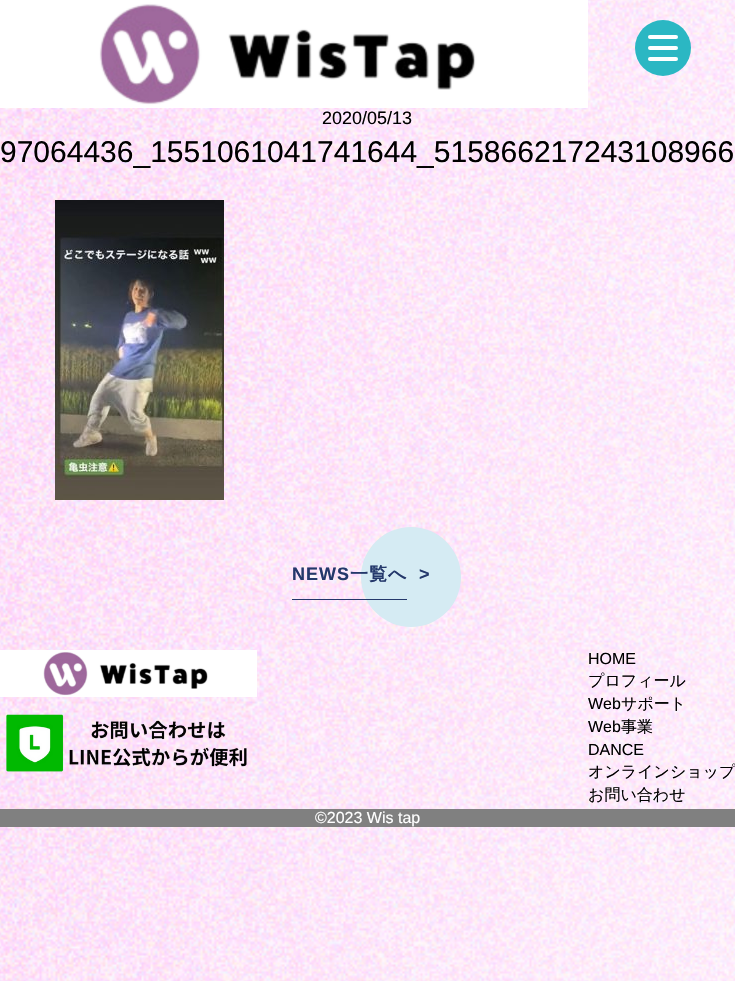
#include "include/core/SkBlurTypes.h"
#include "include/core/SkCanvas.h"
#include "include/core/SkData.h"
#include "include/core/SkFont.h"
#include "include/core/SkFontMgr.h"
#include "include/core/SkImage.h"
#include "include/core/SkMaskFilter.h"
#include "include/core/SkPaint.h"
#include "include/core/SkPathBuilder.h"
#include "include/core/SkTextBlob.h"
#include "include/effects/SkDashPathEffect.h"
#include "include/effects/SkGradientShader.h"
#include "include/utils/SkParsePath.h"

extern sk_sp<SkFontMgr> fontMgr;

void draw(SkCanvas* canvas) {
  SkPaint p;
  p.setAntiAlias(true);
  auto spacedText = [&](const char* s, float x, float y, const SkFont& font, const SkPaint& ink, float letter, float word) {
    std::vector<SkGlyphID> glyphs(font.countText(s, strlen(s), SkTextEncoding::kUTF8));
    std::vector<float> xs(glyphs.size());
    font.textToGlyphs(s, strlen(s), SkTextEncoding::kUTF8, glyphs);
    font.getXPos(glyphs, xs, x);
    float extra = 0;
    for (size_t i = 0; i < glyphs.size(); i++) {
      xs[i] += extra;
      extra += letter + word * (glyphs[i] == font.unicharToGlyph(' '));
    }
    canvas->drawTextBlob(SkTextBlob::MakeFromPosHGlyphs(glyphs, xs, y, font), 0, 0, ink);
  };
  canvas->clear(SK_ColorWHITE);
  canvas->drawImageRect(SkImages::DeferredFromEncodedData(SkData::MakeFromFileName("images/1.png")), SkRect::MakeLTRB(0, 0, 735, 981), SkSamplingOptions());
  canvas->drawImageRect(SkImages::DeferredFromEncodedData(SkData::MakeFromFileName("images/2.png")), SkRect::MakeLTRB(0, 0, 588, 108), SkSamplingOptions());
  p.setColor(SkColorSetRGB(43, 183, 195));
  canvas->drawCircle(663, 48, 28, p);
  p.setColor(SK_ColorWHITE);
  canvas->drawRoundRect(SkRect::MakeLTRB(648, 35, 678, 39), 2, 2, p);
  canvas->drawRoundRect(SkRect::MakeLTRB(648, 46, 678, 50), 2, 2, p);
  canvas->drawRoundRect(SkRect::MakeLTRB(648, 57, 678, 61), 2, 2, p);
  canvas->drawImageRect(SkImages::DeferredFromEncodedData(SkData::MakeFromFileName("images/3.png")), SkRect::MakeLTRB(55, 200, 224, 500), SkSamplingOptions());
  p.setColor(SkColorSetRGB(213, 235, 243));
  canvas->drawCircle(411, 577, 50, p);
  p.setColor(SkColorSetRGB(36, 56, 107));
  canvas->drawRect(SkRect::MakeLTRB(292, 599, 407, 600), p);
  canvas->drawImageRect(SkImages::DeferredFromEncodedData(SkData::MakeFromFileName("images/4.png")), SkRect::MakeLTRB(0, 650, 257, 697), SkSamplingOptions());
  canvas->drawImageRect(SkImages::DeferredFromEncodedData(SkData::MakeFromFileName("images/5.png")), SkRect::MakeLTRB(6, 714, 247, 772), SkSamplingOptions());
  p.setColor(SkColorSetRGB(128, 128, 128));
  canvas->drawRect(SkRect::MakeLTRB(0, 809, 735, 827), p);
  SkFont font1(fontMgr->matchFamilyStyle("Liberation Sans", SkFontStyle::Normal()), 18);
  font1.setSubpixel(true);
  p.setColor(SK_ColorBLACK);
  canvas->drawString("2020/05/13", 322, 124, font1, p);
  SkFont font2(fontMgr->matchFamilyStyle("Liberation Sans", SkFontStyle::Normal()), 30);
  font2.setSubpixel(true);
  canvas->drawString("97064436_1551061041741644_515866217243108966", 0, 162, font2, p);
  SkFont font3(fontMgr->matchFamilyStyle("Liberation Sans", SkFontStyle::Bold()), 18);
  font3.setSubpixel(true);
  p.setColor(SkColorSetRGB(36, 56, 107));
  spacedText("NEWS", 292, 580, font3, p, 1, 0);
  SkFont font4(fontMgr->matchFamilyStyle("WenQuanYi Zen Hei", SkFontStyle::Bold()), 18);
  font4.setSubpixel(true);
  spacedText("一覧へ", 350, 580, font4, p, 1, 0);
  spacedText(">", 419, 580, font3, p, 1, 0);
  SkFont font5(fontMgr->matchFamilyStyle("Liberation Sans", SkFontStyle::Normal()), 16);
  font5.setSubpixel(true);
  p.setColor(SK_ColorBLACK);
  canvas->drawString("HOME", 588, 664, font5, p);
  SkFont font6(fontMgr->matchFamilyStyle("WenQuanYi Zen Hei", SkFontStyle(500, SkFontStyle::kNormal_Width, SkFontStyle::kUpright_Slant)), 16);
  font6.setSubpixel(true);
  canvas->drawString("プロフィール", 588, 686, font6, p);
  canvas->drawString("Web", 588, 709, font5, p);
  canvas->drawString("サポート", 621, 709, font6, p);
  canvas->drawString("Web", 588, 732, font5, p);
  canvas->drawString("事業", 621, 732, font6, p);
  canvas->drawString("DANCE", 588, 755, font5, p);
  canvas->drawString("オンラインショップ", 588, 777, font6, p);
  canvas->drawString("お問い合わせ", 588, 800, font6, p);
  p.setColor(SK_ColorWHITE);
  canvas->drawString("©2023 Wis tap", 315, 823, font5, p);
}
